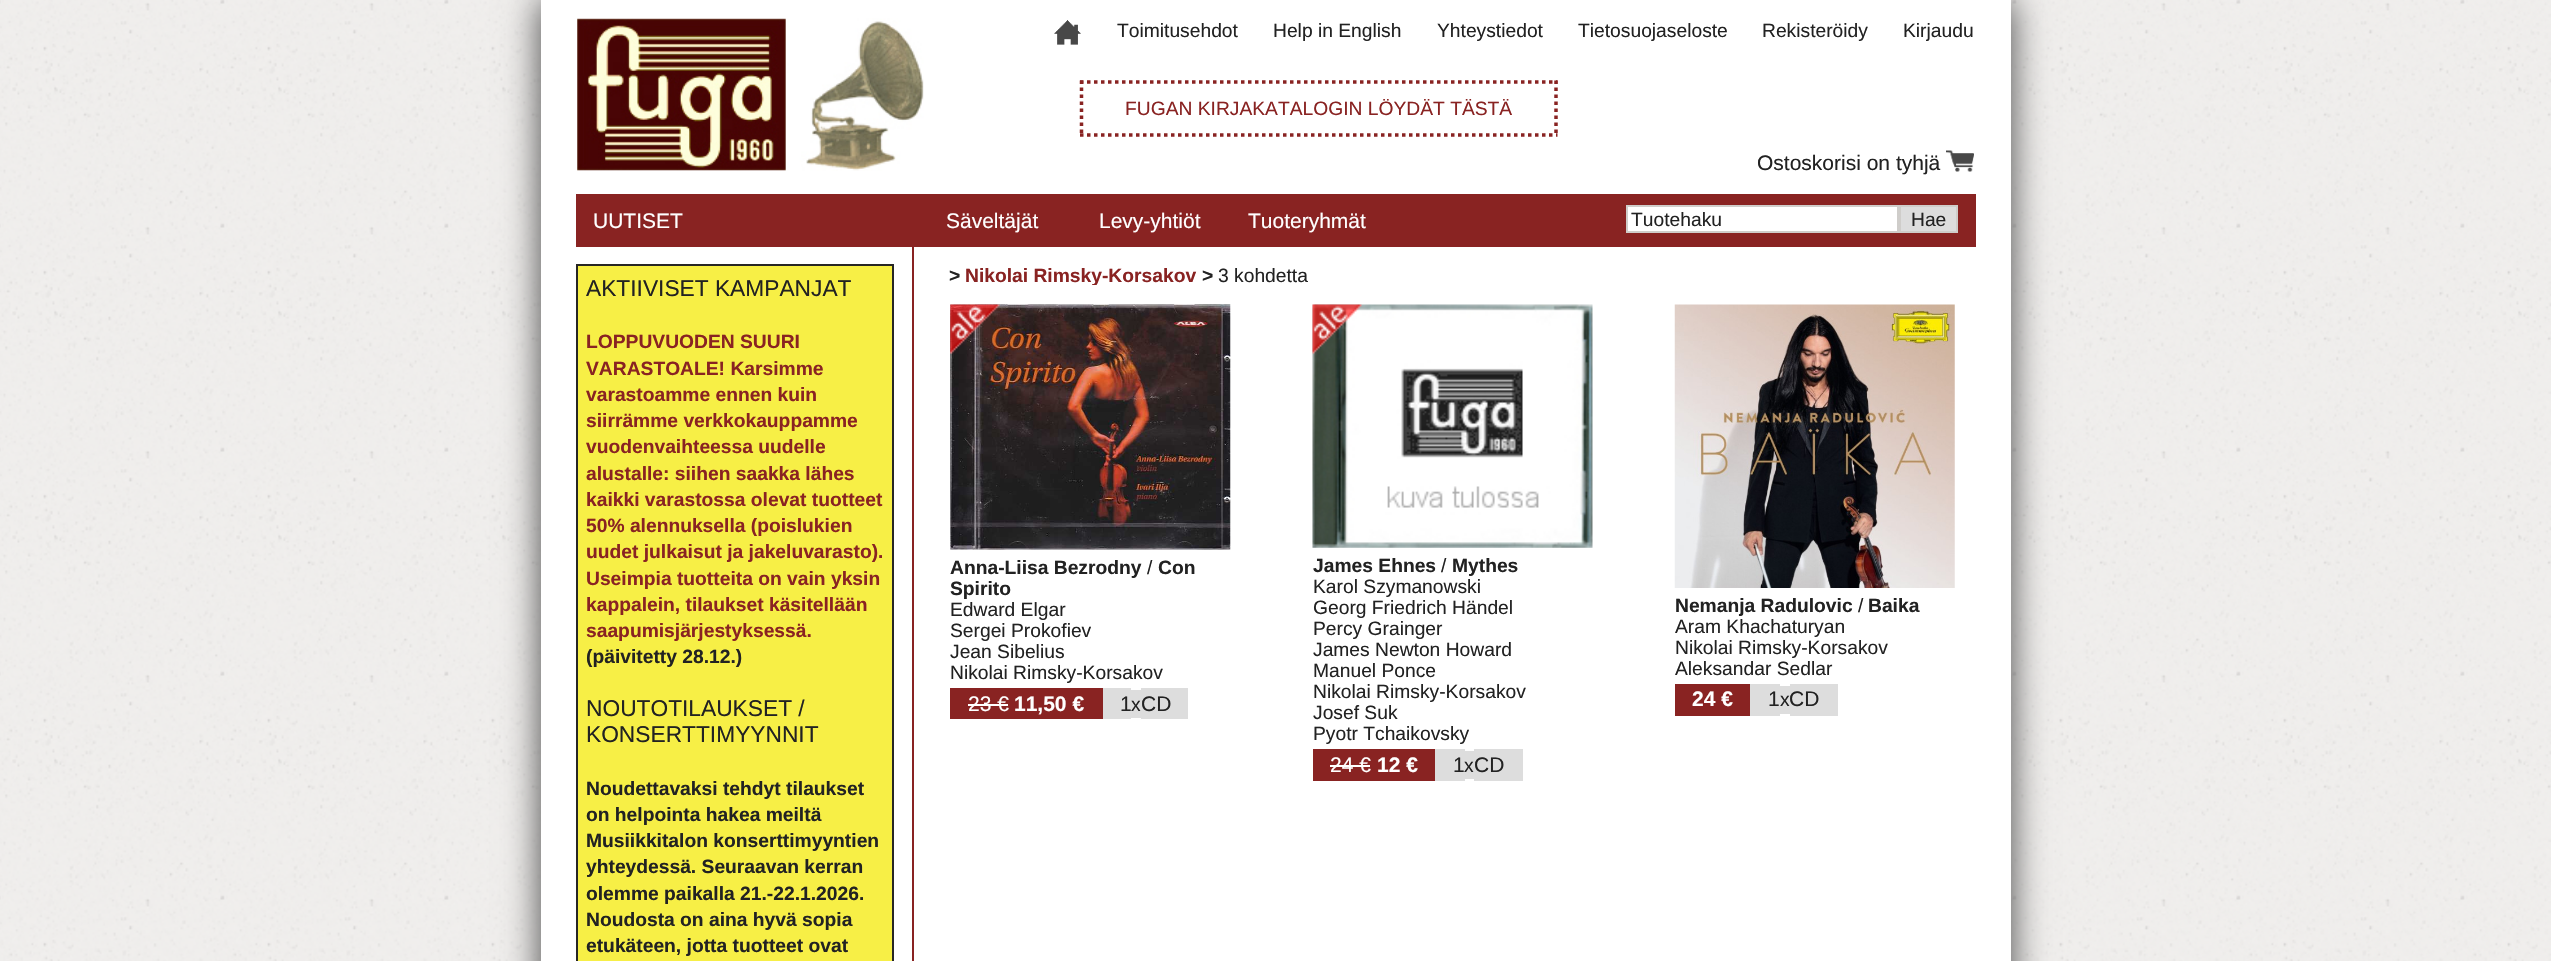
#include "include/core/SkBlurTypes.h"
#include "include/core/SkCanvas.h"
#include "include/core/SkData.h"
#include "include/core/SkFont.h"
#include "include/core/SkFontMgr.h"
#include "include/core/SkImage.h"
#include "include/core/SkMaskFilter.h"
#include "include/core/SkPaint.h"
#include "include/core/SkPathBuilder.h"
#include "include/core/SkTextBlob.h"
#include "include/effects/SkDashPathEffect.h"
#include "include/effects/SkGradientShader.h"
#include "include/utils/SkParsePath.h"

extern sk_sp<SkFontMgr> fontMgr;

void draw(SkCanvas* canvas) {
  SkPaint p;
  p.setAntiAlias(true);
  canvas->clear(SK_ColorWHITE);
  canvas->drawImageRect(SkImages::DeferredFromEncodedData(SkData::MakeFromFileName("images/1.png")), SkRect::MakeLTRB(0, 0, 2551, 961), SkSamplingOptions());
  p.setColor(SkColorSetRGB(68, 68, 68));
  p.setMaskFilter(SkMaskFilter::MakeBlur(kNormal_SkBlurStyle, 17.5f));
  canvas->drawRect(SkRect::MakeLTRB(541, 0, 2011, 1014), p);
  p.setMaskFilter(nullptr);
  p.setColor(SK_ColorWHITE);
  canvas->drawRect(SkRect::MakeLTRB(541, 0, 2011, 961), p);
  canvas->drawImageRect(SkImages::DeferredFromEncodedData(SkData::MakeFromFileName("images/2.png")), SkRect::MakeLTRB(577, 18, 924, 171), SkSamplingOptions());
  canvas->drawImageRect(SkImages::DeferredFromEncodedData(SkData::MakeFromFileName("images/3.png")), SkRect::MakeLTRB(1054, 20, 1081, 45), SkSamplingOptions());
  p.setStyle(SkPaint::kStroke_Style);
  p.setStrokeWidth(3.5f);
  p.setColor(SkColorSetRGB(137, 35, 34));
  p.setPathEffect(SkDashPathEffect::Make({{3.5f, 3.5f}}, 0));
  canvas->drawPath(SkPathBuilder().moveTo(1080, 82).lineTo(1557.5f, 82).detach(), p);
  p.setPathEffect(nullptr);
  p.setPathEffect(SkDashPathEffect::Make({{3.5f, 3.5f}}, 0));
  canvas->drawPath(SkPathBuilder().moveTo(1556, 80.5f).lineTo(1556, 136.5f).detach(), p);
  p.setPathEffect(nullptr);
  p.setPathEffect(SkDashPathEffect::Make({{3.5f, 3.5f}}, 0));
  canvas->drawPath(SkPathBuilder().moveTo(1080, 135).lineTo(1557.5f, 135).detach(), p);
  p.setPathEffect(nullptr);
  p.setPathEffect(SkDashPathEffect::Make({{3.5f, 3.5f}}, 0));
  canvas->drawPath(SkPathBuilder().moveTo(1081.5f, 80.5f).lineTo(1081.5f, 136.5f).detach(), p);
  p.setPathEffect(nullptr);
  canvas->drawImageRect(SkImages::DeferredFromEncodedData(SkData::MakeFromFileName("images/4.png")), SkRect::MakeLTRB(1946, 150, 1974, 172), SkSamplingOptions());
  p.setStyle(SkPaint::kFill_Style);
  canvas->drawRect(SkRect::MakeLTRB(912, 194, 914, 961), p);
  canvas->drawRect(SkRect::MakeLTRB(576, 194, 912, 247), p);
  p.setColor(SkColorSetRGB(247, 239, 70));
  canvas->drawRect(SkRect::MakeLTRB(577, 265, 893, 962), p);
  p.setStyle(SkPaint::kStroke_Style);
  p.setStrokeWidth(2);
  p.setColor(SkColorSetRGB(39, 38, 36));
  canvas->drawRect(SkRect::MakeLTRB(577, 265, 893, 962), p);
  p.setStyle(SkPaint::kFill_Style);
  p.setColor(SkColorSetRGB(137, 35, 34));
  canvas->drawRect(SkRect::MakeLTRB(914, 194, 1976, 247), p);
  p.setColor(SK_ColorWHITE);
  canvas->drawRect(SkRect::MakeLTRB(1627, 206, 1898, 232), p);
  p.setStyle(SkPaint::kStroke_Style);
  p.setColor(SkColorSetRGB(207, 205, 202));
  canvas->drawRect(SkRect::MakeLTRB(1627, 206, 1898, 232), p);
  p.setStyle(SkPaint::kFill_Style);
  p.setColor(SkColorSetRGB(221, 221, 221));
  canvas->drawRect(SkRect::MakeLTRB(1900, 206, 1957, 232), p);
  p.setStyle(SkPaint::kStroke_Style);
  p.setColor(SkColorSetRGB(207, 205, 202));
  canvas->drawRect(SkRect::MakeLTRB(1900, 206, 1957, 232), p);
  canvas->drawImageRect(SkImages::DeferredFromEncodedData(SkData::MakeFromFileName("images/7.png")), SkRect::MakeLTRB(1312, 304, 1593, 548), SkSamplingOptions());
  canvas->drawImageRect(SkImages::DeferredFromEncodedData(SkData::MakeFromFileName("images/8.png")), SkRect::MakeLTRB(1312, 304, 1362, 354), SkSamplingOptions());
  p.setStyle(SkPaint::kFill_Style);
  p.setColor(SkColorSetRGB(137, 35, 34));
  canvas->drawRect(SkRect::MakeLTRB(1313, 749, 1435, 781), p);
  p.setColor(SK_ColorWHITE);
  canvas->drawRect(SkRect::MakeLTRB(1330, 765, 1370, 767), p);
  p.setColor(SkColorSetRGB(221, 221, 221));
  canvas->drawRect(SkRect::MakeLTRB(1435, 749, 1465, 781), p);
  canvas->drawRect(SkRect::MakeLTRB(1465, 751, 1474, 779), p);
  canvas->drawRect(SkRect::MakeLTRB(1474, 749, 1523, 781), p);
  canvas->drawImageRect(SkImages::DeferredFromEncodedData(SkData::MakeFromFileName("images/9.png")), SkRect::MakeLTRB(1674, 304, 1955, 588), SkSamplingOptions());
  p.setColor(SkColorSetRGB(137, 35, 34));
  canvas->drawRect(SkRect::MakeLTRB(1675, 684, 1750, 716), p);
  p.setColor(SkColorSetRGB(221, 221, 221));
  canvas->drawRect(SkRect::MakeLTRB(1750, 684, 1780, 716), p);
  canvas->drawRect(SkRect::MakeLTRB(1780, 686, 1790, 714), p);
  canvas->drawRect(SkRect::MakeLTRB(1790, 684, 1838, 716), p);
  SkFont font1(fontMgr->matchFamilyStyle("Liberation Sans", SkFontStyle::Normal()), 19.25f);
  font1.setSubpixel(true);
  p.setColor(SkColorSetRGB(34, 34, 34));
  canvas->drawString("Toimitusehdot", 1117, 37, font1, p);
  canvas->drawString("Help in English", 1273, 37, font1, p);
  canvas->drawString("Yhteystiedot", 1437, 37, font1, p);
  canvas->drawString("Tietosuojaseloste", 1578, 37, font1, p);
  canvas->drawString("Rekisteröidy", 1762, 37, font1, p);
  canvas->drawString("Kirjaudu", 1903, 37, font1, p);
  p.setColor(SkColorSetRGB(137, 35, 34));
  canvas->drawString("FUGAN KIRJAKATALOGIN LÖYDÄT TÄSTÄ", 1125, 115, font1, p);
  SkFont font2(fontMgr->matchFamilyStyle("Liberation Sans", SkFontStyle::Normal()), 21);
  font2.setSubpixel(true);
  p.setColor(SkColorSetRGB(34, 34, 34));
  canvas->drawString("Ostoskorisi on tyhjä", 1757, 170, font2, p);
  p.setColor(SK_ColorWHITE);
  canvas->drawString("UUTISET", 593, 228, font2, p);
  SkFont font3(fontMgr->matchFamilyStyle("Liberation Sans", SkFontStyle::Normal()), 22.75f);
  font3.setSubpixel(true);
  p.setColor(SkColorSetRGB(34, 34, 34));
  canvas->drawString("AKTIIVISET KAMPANJAT", 586, 296, font3, p);
  SkFont font4(fontMgr->matchFamilyStyle("Liberation Sans", SkFontStyle::Bold()), 19.25f);
  font4.setSubpixel(true);
  p.setColor(SkColorSetRGB(137, 35, 34));
  canvas->drawString("LOPPUVUODEN SUURI", 586, 348, font4, p);
  canvas->drawString("VARASTOALE! Karsimme", 586, 375, font4, p);
  canvas->drawString("varastoamme ennen kuin", 586, 401, font4, p);
  canvas->drawString("siirrämme verkkokauppamme", 586, 427, font4, p);
  canvas->drawString("vuodenvaihteessa uudelle", 586, 453, font4, p);
  canvas->drawString("alustalle: siihen saakka lähes", 586, 480, font4, p);
  canvas->drawString("kaikki varastossa olevat tuotteet", 586, 506, font4, p);
  canvas->drawString("50% alennuksella (poislukien", 586, 532, font4, p);
  canvas->drawString("uudet julkaisut ja jakeluvarasto).", 586, 558, font4, p);
  canvas->drawString("Useimpia tuotteita on vain yksin", 586, 585, font4, p);
  canvas->drawString("kappalein, tilaukset käsitellään", 586, 611, font4, p);
  canvas->drawString("saapumisjärjestyksessä.", 586, 637, font4, p);
  p.setColor(SkColorSetRGB(34, 34, 34));
  canvas->drawString("(päivitetty 28.12.)", 586, 663, font4, p);
  canvas->drawString("NOUTOTILAUKSET /", 586, 716, font3, p);
  canvas->drawString("KONSERTTIMYYNNIT", 586, 742, font3, p);
  canvas->drawString("Noudettavaksi tehdyt tilaukset", 586, 795, font4, p);
  canvas->drawString("on helpointa hakea meiltä", 586, 821, font4, p);
  canvas->drawString("Musiikkitalon konserttimyyntien", 586, 847, font4, p);
  canvas->drawString("yhteydessä. Seuraavan kerran", 586, 873, font4, p);
  canvas->drawString("olemme paikalla 21.-22.1.2026.", 586, 900, font4, p);
  canvas->drawString("Noudosta on aina hyvä sopia", 586, 926, font4, p);
  canvas->drawString("etukäteen, jotta tuotteet ovat", 586, 952, font4, p);
  p.setColor(SK_ColorWHITE);
  canvas->drawString("Säveltäjät", 946, 228, font2, p);
  canvas->drawString("Levy-yhtiöt", 1099, 228, font2, p);
  canvas->drawString("Tuoteryhmät", 1248, 228, font2, p);
  p.setColor(SkColorSetRGB(34, 34, 34));
  canvas->drawString("Tuotehaku", 1631, 226, font1, p);
  canvas->drawString("Hae", 1911, 226, font1, p);
  canvas->drawString(">", 949, 282, font4, p);
  p.setColor(SkColorSetRGB(137, 35, 34));
  canvas->drawString("Nikolai Rimsky-Korsakov", 965, 282, font4, p);
  p.setColor(SkColorSetRGB(34, 34, 34));
  canvas->drawString(">", 1202, 282, font4, p);
  canvas->drawString("3 kohdetta", 1218, 282, font1, p);
  p.setStyle(SkPaint::kStroke_Style);
  p.setColor(SK_ColorWHITE);
  canvas->drawRect(SkRect::MakeLTRB(932, 286, 1249, 734), p);
  canvas->drawImageRect(SkImages::DeferredFromEncodedData(SkData::MakeFromFileName("images/5.png")), SkRect::MakeLTRB(950, 304, 1231, 550), SkSamplingOptions());
  canvas->drawImageRect(SkImages::DeferredFromEncodedData(SkData::MakeFromFileName("images/6.png")), SkRect::MakeLTRB(950, 304, 1000, 354), SkSamplingOptions());
  p.setStyle(SkPaint::kFill_Style);
  p.setColor(SkColorSetRGB(34, 34, 34));
  canvas->drawString("Anna-Liisa Bezrodny", 950, 574, font4, p);
  canvas->drawString("/", 1147, 574, font1, p);
  canvas->drawString("Con", 1158, 574, font4, p);
  canvas->drawString("Spirito", 950, 595, font4, p);
  canvas->drawString("Edward Elgar", 950, 616, font1, p);
  canvas->drawString("Sergei Prokofiev", 950, 637, font1, p);
  canvas->drawString("Jean Sibelius", 950, 658, font1, p);
  canvas->drawString("Nikolai Rimsky-Korsakov", 950, 679, font1, p);
  p.setColor(SkColorSetRGB(137, 35, 34));
  canvas->drawRect(SkRect::MakeLTRB(950, 688, 1103, 719), p);
  p.setColor(SK_ColorWHITE);
  canvas->drawString("23 €", 968, 711, font2, p);
  canvas->drawRect(SkRect::MakeLTRB(968, 704, 1008, 706), p);
  SkFont font5(fontMgr->matchFamilyStyle("Liberation Sans", SkFontStyle::Bold()), 21);
  font5.setSubpixel(true);
  canvas->drawString("11,50 €", 1014, 711, font5, p);
  p.setColor(SkColorSetRGB(221, 221, 221));
  canvas->drawRect(SkRect::MakeLTRB(1103, 688, 1131, 719), p);
  p.setColor(SkColorSetRGB(34, 34, 34));
  canvas->drawString("1", 1120, 711, font2, p);
  p.setColor(SkColorSetRGB(221, 221, 221));
  canvas->drawRect(SkRect::MakeLTRB(1131, 690, 1141, 718), p);
  p.setColor(SkColorSetRGB(34, 34, 34));
  canvas->drawString("x", 1131, 711, font1, p);
  p.setColor(SkColorSetRGB(221, 221, 221));
  canvas->drawRect(SkRect::MakeLTRB(1141, 688, 1188, 719), p);
  p.setColor(SkColorSetRGB(34, 34, 34));
  canvas->drawString("CD", 1141, 711, font2, p);
  canvas->drawString("James Ehnes", 1313, 572, font4, p);
  canvas->drawString("/", 1441, 572, font1, p);
  canvas->drawString("Mythes", 1452, 572, font4, p);
  canvas->drawString("Karol Szymanowski", 1313, 593, font1, p);
  canvas->drawString("Georg Friedrich Händel", 1313, 614, font1, p);
  canvas->drawString("Percy Grainger", 1313, 635, font1, p);
  canvas->drawString("James Newton Howard", 1313, 656, font1, p);
  canvas->drawString("Manuel Ponce", 1313, 677, font1, p);
  canvas->drawString("Nikolai Rimsky-Korsakov", 1313, 698, font1, p);
  canvas->drawString("Josef Suk", 1313, 719, font1, p);
  canvas->drawString("Pyotr Tchaikovsky", 1313, 740, font1, p);
  p.setColor(SK_ColorWHITE);
  canvas->drawString("24 €", 1330, 772, font2, p);
  canvas->drawString("12 €", 1377, 772, font5, p);
  p.setColor(SkColorSetRGB(34, 34, 34));
  canvas->drawString("1", 1453, 772, font2, p);
  canvas->drawString("x", 1464, 772, font1, p);
  canvas->drawString("CD", 1474, 772, font2, p);
  canvas->drawString("Nemanja Radulovic", 1675, 612, font4, p);
  canvas->drawString("/", 1858, 612, font1, p);
  canvas->drawString("Baika", 1868, 612, font4, p);
  canvas->drawString("Aram Khachaturyan", 1675, 633, font1, p);
  canvas->drawString("Nikolai Rimsky-Korsakov", 1675, 654, font1, p);
  canvas->drawString("Aleksandar Sedlar", 1675, 675, font1, p);
  p.setColor(SK_ColorWHITE);
  canvas->drawString("24 €", 1692, 706, font5, p);
  p.setColor(SkColorSetRGB(34, 34, 34));
  canvas->drawString("1", 1768, 706, font2, p);
  canvas->drawString("x", 1780, 706, font1, p);
  canvas->drawString("CD", 1789, 706, font2, p);
}
